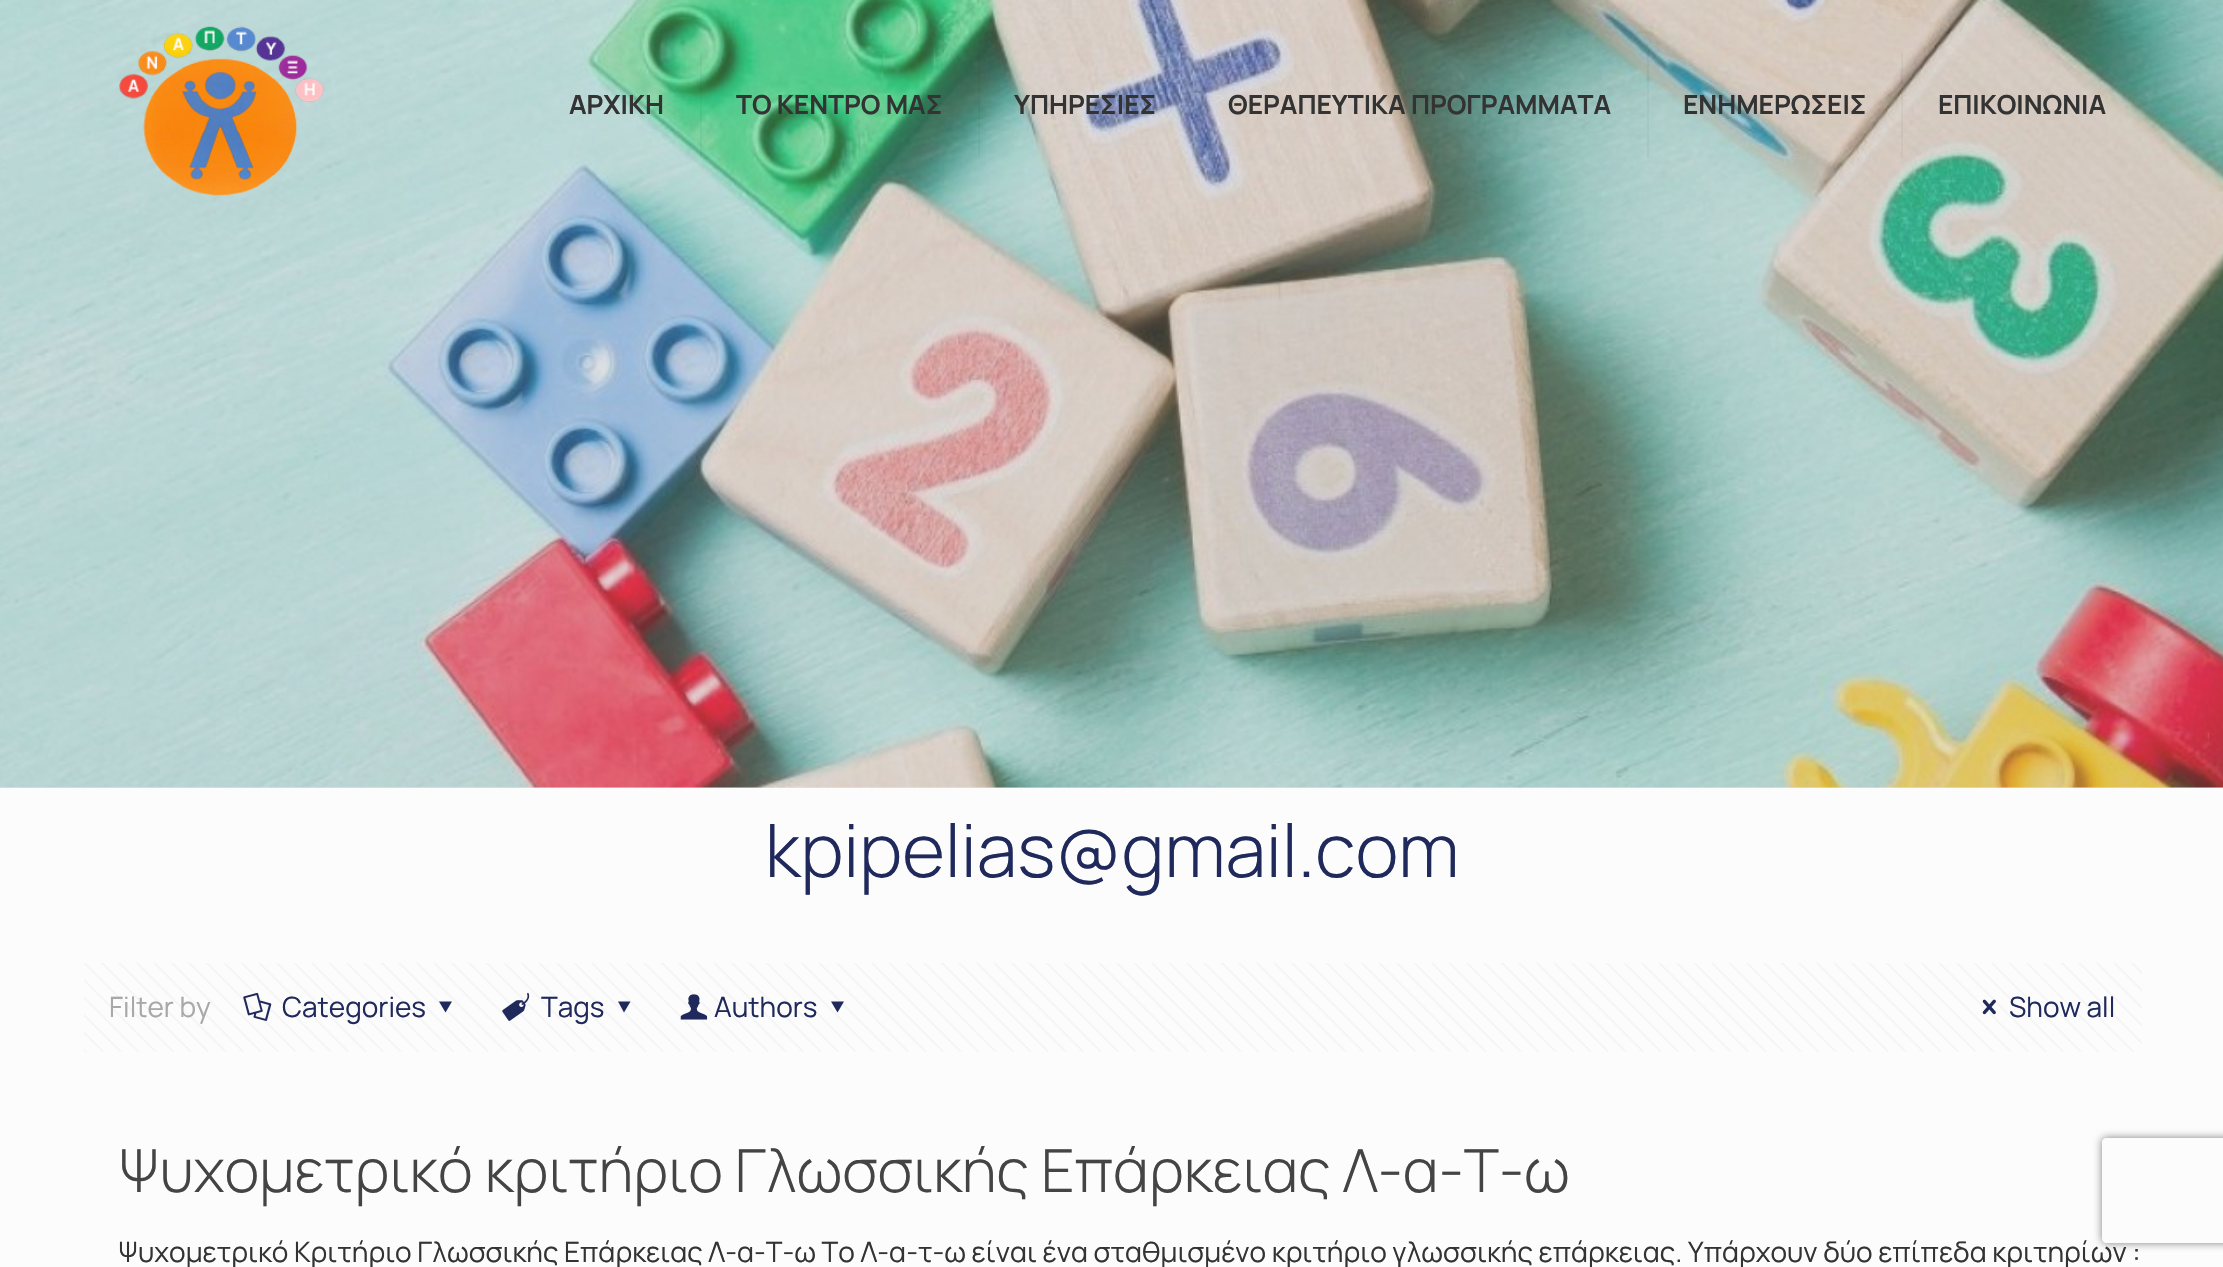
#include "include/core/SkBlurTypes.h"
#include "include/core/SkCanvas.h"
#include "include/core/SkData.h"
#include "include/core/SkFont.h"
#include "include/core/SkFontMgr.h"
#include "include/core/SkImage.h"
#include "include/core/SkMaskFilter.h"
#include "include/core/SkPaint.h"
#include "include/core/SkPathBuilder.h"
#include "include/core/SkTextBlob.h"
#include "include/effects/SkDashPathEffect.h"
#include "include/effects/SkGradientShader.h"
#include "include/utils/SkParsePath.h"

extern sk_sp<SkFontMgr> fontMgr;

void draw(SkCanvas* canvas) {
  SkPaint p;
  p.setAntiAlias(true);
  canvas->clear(SkColorSetRGB(252, 252, 252));
  p.setColor(SkColorSetRGB(222, 236, 239));
  canvas->drawRect(SkRect::MakeLTRB(0, 787, 2223, 788), p);
  canvas->drawImageRect(SkImages::DeferredFromEncodedData(SkData::MakeFromFileName("images/1.png")), SkRect::MakeLTRB(0, 0, 2223, 788), SkSamplingOptions());
  canvas->drawImageRect(SkImages::DeferredFromEncodedData(SkData::MakeFromFileName("images/2.png")), SkRect::MakeLTRB(119, 26, 324, 196), SkSamplingOptions());
  p.setColor(SkColorSetARGB(8, 0, 0, 0));
  canvas->drawRect(SkRect::MakeLTRB(700, 53, 702, 158), p);
  canvas->drawRect(SkRect::MakeLTRB(978, 53, 980, 158), p);
  canvas->drawRect(SkRect::MakeLTRB(1192, 53, 1194, 158), p);
  canvas->drawRect(SkRect::MakeLTRB(1647, 53, 1649, 158), p);
  canvas->drawRect(SkRect::MakeLTRB(1901, 53, 1903, 158), p);
  canvas->drawImageRect(SkImages::DeferredFromEncodedData(SkData::MakeFromFileName("images/3.png")), SkRect::MakeLTRB(84, 963, 2142, 1052), SkSamplingOptions());
  canvas->drawImageRect(SkImages::DeferredFromEncodedData(SkData::MakeFromFileName("images/4.png")), SkRect::MakeLTRB(243, 992, 272, 1021), SkSamplingOptions());
  p.setColor(SkColorSetRGB(32, 41, 91));
  canvas->drawPath(SkPathBuilder().moveTo(452, 1001.5f).lineTo(445.5f, 1012.5f).lineTo(439, 1001.5f).close().detach(), p);
  canvas->drawImageRect(SkImages::DeferredFromEncodedData(SkData::MakeFromFileName("images/5.png")), SkRect::MakeLTRB(502, 992, 530, 1021), SkSamplingOptions());
  canvas->drawPath(SkPathBuilder().moveTo(630.5f, 1001.5f).lineTo(624, 1012.5f).lineTo(618, 1001.5f).close().detach(), p);
  canvas->drawImageRect(SkImages::DeferredFromEncodedData(SkData::MakeFromFileName("images/6.png")), SkRect::MakeLTRB(680, 994, 708, 1020), SkSamplingOptions());
  canvas->drawPath(SkPathBuilder().moveTo(844, 1001.5f).lineTo(837.5f, 1012.5f).lineTo(831, 1001.5f).close().detach(), p);
  canvas->drawImageRect(SkImages::DeferredFromEncodedData(SkData::MakeFromFileName("images/7.png")), SkRect::MakeLTRB(1982, 999, 1996, 1015), SkSamplingOptions());
  canvas->save();
  canvas->clipPath(SkPathBuilder(SkPathFillType::kEvenOdd).moveTo(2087, 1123).lineTo(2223, 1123).lineTo(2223, 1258).lineTo(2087, 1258).close().moveTo(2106, 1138).lineTo(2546, 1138).cubicTo(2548, 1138, 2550, 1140, 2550, 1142).lineTo(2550, 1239).cubicTo(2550, 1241, 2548, 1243, 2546, 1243).lineTo(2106, 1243).cubicTo(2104, 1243, 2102, 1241, 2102, 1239).lineTo(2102, 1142).cubicTo(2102, 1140, 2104, 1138, 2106, 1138).close().detach(), true);
  p.setColor(SkColorSetRGB(128, 128, 128));
  p.setMaskFilter(SkMaskFilter::MakeBlur(kNormal_SkBlurStyle, 4.5f));
  canvas->drawRoundRect(SkRect::MakeLTRB(2102, 1138, 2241, 1243), 4, 4, p);
  p.setMaskFilter(nullptr);
  canvas->restore();
  SkFont font1(fontMgr->matchFamilyStyle("Manrope", SkFontStyle::Bold()), 26.25f);
  font1.setSubpixel(true);
  p.setColor(SkColorSetRGB(51, 51, 51));
  canvas->drawString("ΑΡΧΙΚΗ", 569, 114, font1, p);
  canvas->drawString("ΤΟ ΚΕΝΤΡΟ ΜΑΣ", 736, 114, font1, p);
  canvas->drawString("ΥΠΗΡΕΣΙΕΣ", 1014, 114, font1, p);
  canvas->drawString("ΘΕΡΑΠΕΥΤΙΚΑ ΠΡΟΓΡΑΜΜΑΤΑ", 1228, 114, font1, p);
  canvas->drawString("ΕΝΗΜΕΡΩΣΕΙΣ", 1683, 114, font1, p);
  canvas->drawString("ΕΠΙΚΟΙΝΩΝΙΑ", 1938, 114, font1, p);
  SkFont font2(fontMgr->matchFamilyStyle("Manrope", SkFontStyle(300, SkFontStyle::kNormal_Width, SkFontStyle::kUpright_Slant)), 73.5f);
  font2.setSubpixel(true);
  p.setColor(SkColorSetRGB(32, 41, 91));
  canvas->drawString("kpipelias@gmail.com", 765, 877, font2, p);
  SkFont font3(fontMgr->matchFamilyStyle("Manrope", SkFontStyle::Normal()), 28);
  font3.setSubpixel(true);
  p.setColor(SkColorSetRGB(168, 168, 168));
  canvas->drawString("Filter by", 109, 1017, font3, p);
  p.setColor(SkColorSetRGB(32, 41, 91));
  canvas->drawString("Categories", 282, 1017, font3, p);
  canvas->drawString("Tags", 541, 1017, font3, p);
  canvas->drawString("Authors", 714, 1017, font3, p);
  canvas->drawString("Show all", 2009, 1017, font3, p);
  SkFont font4(fontMgr->matchFamilyStyle("Manrope", SkFontStyle(300, SkFontStyle::kNormal_Width, SkFontStyle::kUpright_Slant)), 59.5f);
  font4.setSubpixel(true);
  p.setColor(SkColorSetRGB(68, 68, 68));
  canvas->drawString("Ψυχομετρικό κριτήριο Γλωσσικής Επάρκειας Λ-α-Τ-ω", 118, 1192, font4, p);
  p.setColor(SkColorSetRGB(51, 51, 51));
  canvas->drawString("Ψυχομετρικό Κριτήριο Γλωσσικής Επάρκειας Λ-α-Τ-ω Το Λ-α-τ-ω είναι ένα σταθμισμένο κριτήριο γλωσσικής επάρκειας. Υπάρχουν δύο επίπεδα κριτηρίων :", 118, 1262, font3, p);
}
